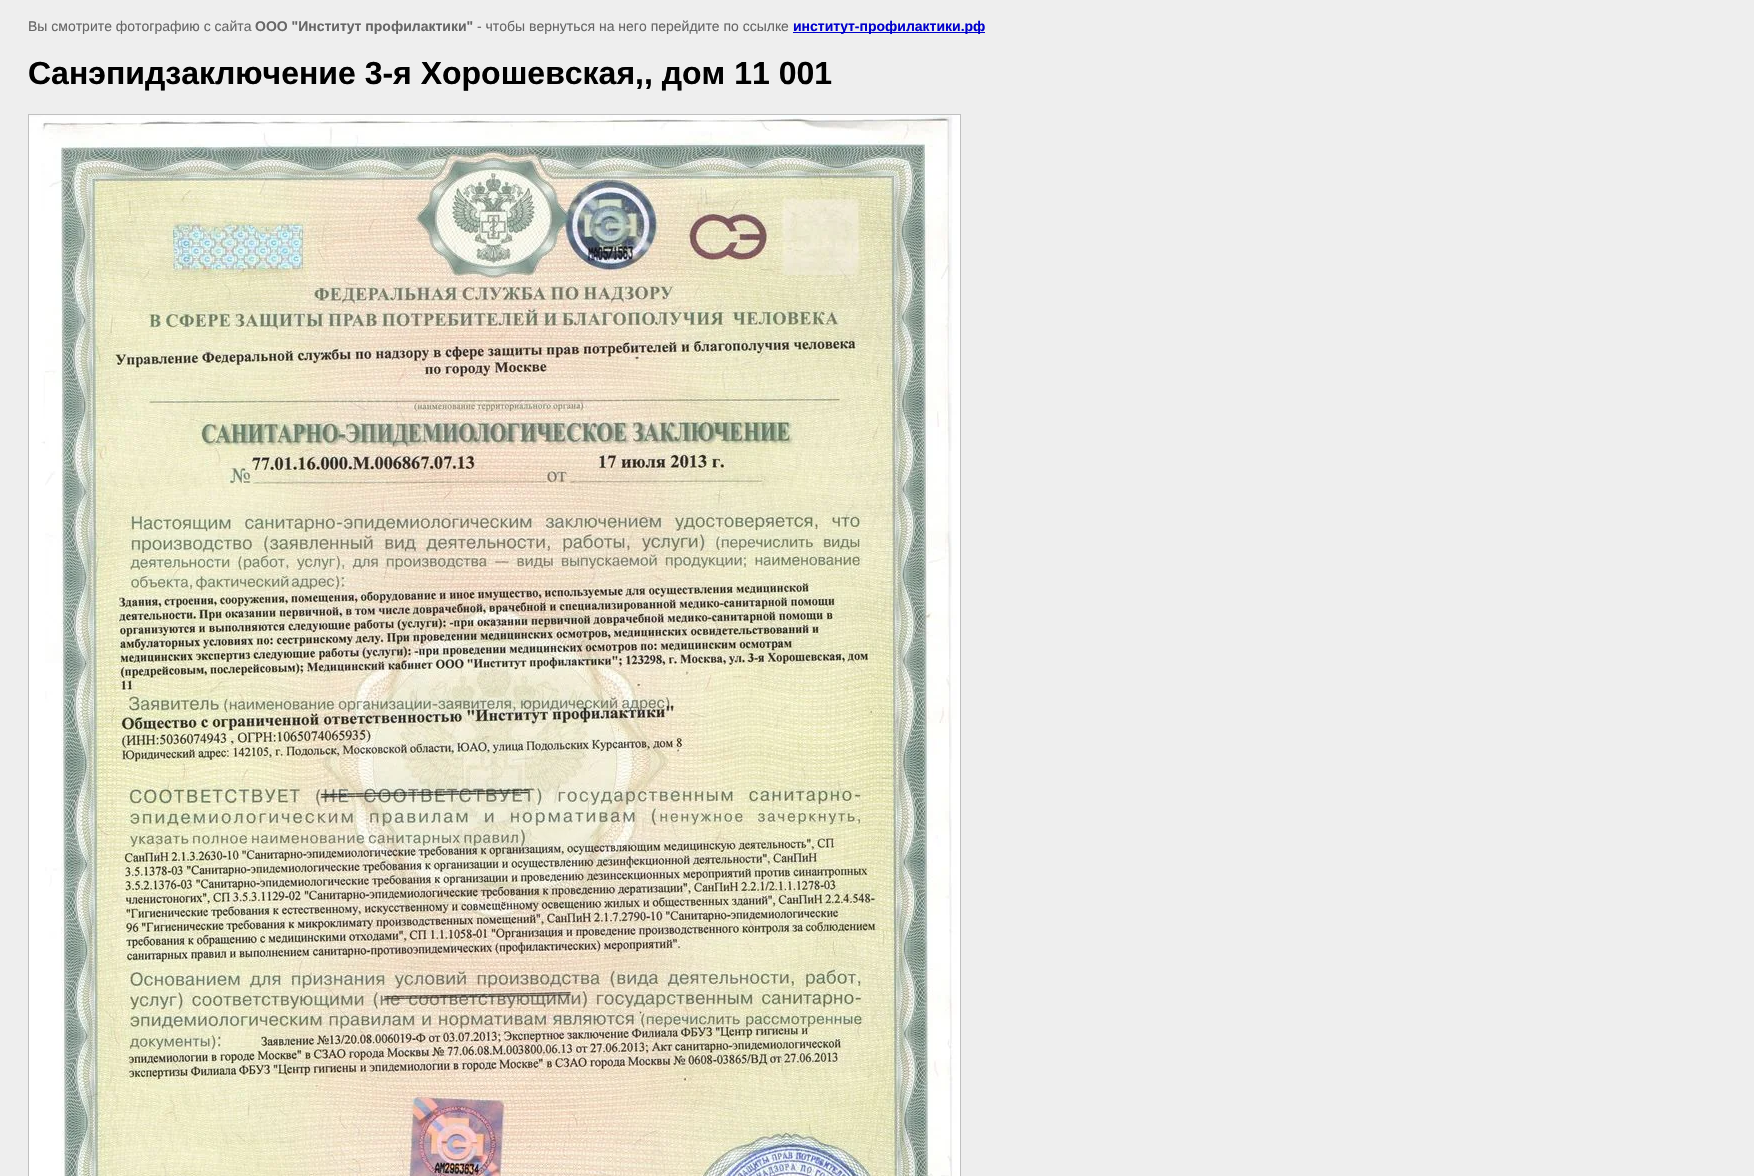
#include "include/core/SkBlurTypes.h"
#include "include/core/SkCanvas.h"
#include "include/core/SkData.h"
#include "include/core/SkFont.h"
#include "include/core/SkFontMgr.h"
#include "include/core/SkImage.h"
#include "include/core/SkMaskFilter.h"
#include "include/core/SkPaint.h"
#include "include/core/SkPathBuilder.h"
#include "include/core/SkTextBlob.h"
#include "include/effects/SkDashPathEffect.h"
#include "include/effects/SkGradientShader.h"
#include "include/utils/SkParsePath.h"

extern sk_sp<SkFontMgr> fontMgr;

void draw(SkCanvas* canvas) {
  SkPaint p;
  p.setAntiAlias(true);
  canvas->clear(SkColorSetRGB(238, 238, 238));
  p.setColor(SkColorSetRGB(0, 0, 204));
  canvas->drawRect(SkRect::MakeLTRB(793, 32, 985, 33), p);
  p.setStyle(SkPaint::kStroke_Style);
  p.setStrokeWidth(1);
  p.setColor(SkColorSetRGB(192, 192, 192));
  canvas->drawRect(SkRect::MakeLTRB(28.5f, 114.5f, 960.5f, 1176.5f), p);
  canvas->drawImageRect(SkImages::DeferredFromEncodedData(SkData::MakeFromFileName("images/1.png")), SkRect::MakeLTRB(29, 115, 960, 1176), SkSamplingOptions());
  SkFont font1(fontMgr->matchFamilyStyle("Liberation Sans", SkFontStyle::Normal()), 14);
  font1.setSubpixel(true);
  p.setStyle(SkPaint::kFill_Style);
  p.setColor(SkColorSetRGB(102, 102, 102));
  canvas->drawString("Вы смотрите фотографию с сайта", 28, 31, font1, p);
  SkFont font2(fontMgr->matchFamilyStyle("Liberation Sans", SkFontStyle::Bold()), 14);
  font2.setSubpixel(true);
  canvas->drawString("ООО \"Институт профилактики\"", 255, 31, font2, p);
  canvas->drawString("- чтобы вернуться на него перейдите по ссылке", 477, 31, font1, p);
  p.setColor(SkColorSetRGB(0, 0, 204));
  canvas->drawString("институт-профилактики.рф", 793, 31, font2, p);
  SkFont font3(fontMgr->matchFamilyStyle("Liberation Sans", SkFontStyle::Bold()), 32);
  font3.setSubpixel(true);
  p.setColor(SK_ColorBLACK);
  canvas->drawString("Санэпидзаключение 3-я Хорошевская,, дом 11 001", 28, 84, font3, p);
}
